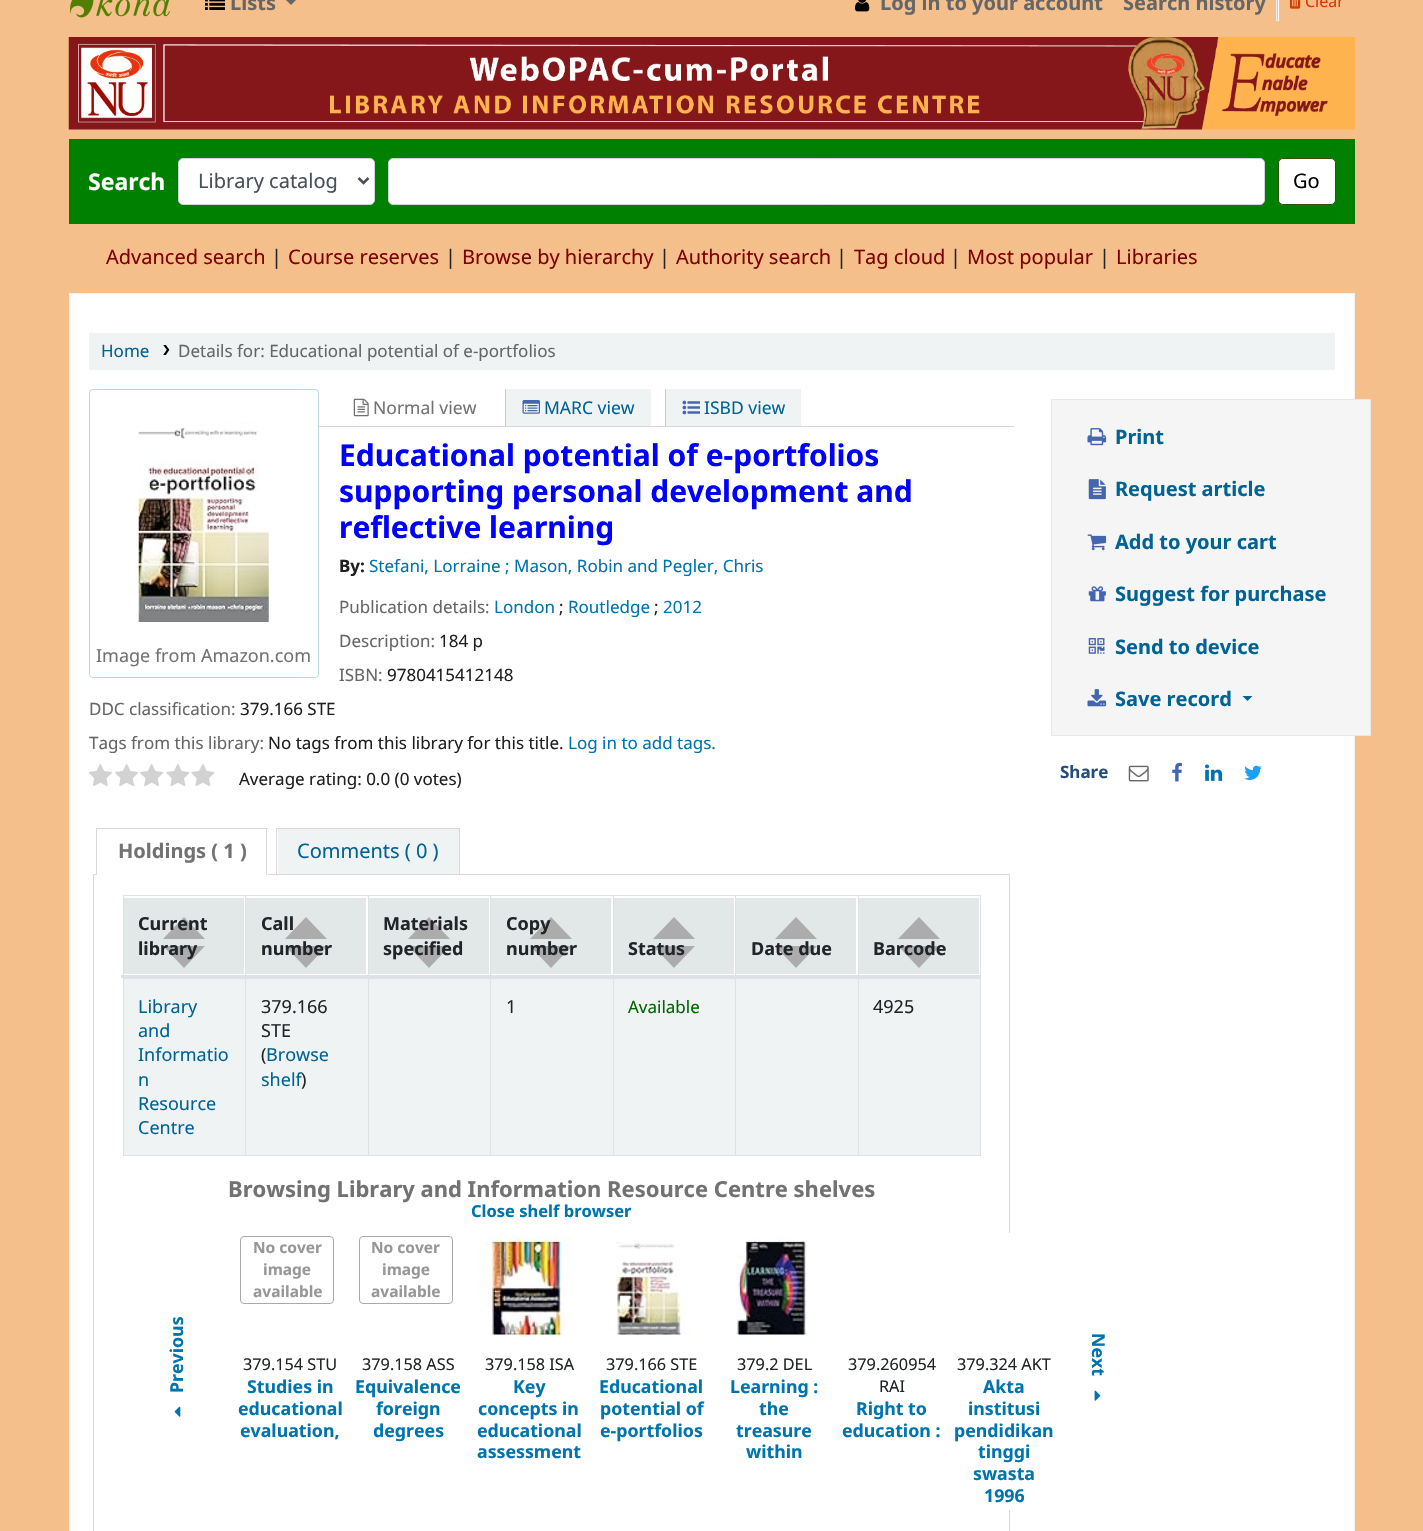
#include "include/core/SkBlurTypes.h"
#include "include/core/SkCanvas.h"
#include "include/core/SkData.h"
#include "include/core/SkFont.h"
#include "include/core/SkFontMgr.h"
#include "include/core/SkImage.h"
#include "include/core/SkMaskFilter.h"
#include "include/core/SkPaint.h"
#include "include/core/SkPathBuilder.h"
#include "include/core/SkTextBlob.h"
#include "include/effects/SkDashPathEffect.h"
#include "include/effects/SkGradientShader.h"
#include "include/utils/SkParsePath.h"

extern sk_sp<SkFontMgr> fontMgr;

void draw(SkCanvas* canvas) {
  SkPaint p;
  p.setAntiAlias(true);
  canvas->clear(SkColorSetRGB(244, 191, 139));
  canvas->drawImageRect(SkImages::DeferredFromEncodedData(SkData::MakeFromFileName("images/1.png")), SkRect::MakeLTRB(70, 0, 170, 18), SkSamplingOptions());
  canvas->drawImageRect(SkImages::DeferredFromEncodedData(SkData::MakeFromFileName("images/2.png")), SkRect::MakeLTRB(205, 0, 225, 10), SkSamplingOptions());
  p.setColor(SkColorSetRGB(102, 102, 102));
  canvas->drawPath(SkPathBuilder().moveTo(286, 0).lineTo(296, 0).lineTo(291, 5).close().detach(), p);
  canvas->drawImageRect(SkImages::DeferredFromEncodedData(SkData::MakeFromFileName("images/3.png")), SkRect::MakeLTRB(855, 0, 870, 12), SkSamplingOptions());
  p.setColor(SkColorSetRGB(252, 249, 252));
  canvas->drawRect(SkRect::MakeLTRB(1278, 0, 1279, 21), p);
  p.setColor(SkColorSetRGB(238, 238, 238));
  canvas->drawRect(SkRect::MakeLTRB(1276, 20, 1279, 21), p);
  canvas->drawRect(SkRect::MakeLTRB(1276, 0, 1277, 21), p);
  canvas->drawImageRect(SkImages::DeferredFromEncodedData(SkData::MakeFromFileName("images/4.png")), SkRect::MakeLTRB(1289, 0, 1301, 9), SkSamplingOptions());
  canvas->drawImageRect(SkImages::DeferredFromEncodedData(SkData::MakeFromFileName("images/5.png")), SkRect::MakeLTRB(68, 37, 1355, 130), SkSamplingOptions());
  p.setColor(SkColorSetRGB(0, 128, 0));
  canvas->drawRect(SkRect::MakeLTRB(69, 139, 1355, 224), p);
  p.setColor(SK_ColorWHITE);
  canvas->drawRoundRect(SkRect::MakeLTRB(178.5f, 158.5f, 374.5f, 204.5f), 4.5f, 4.5f, p);
  p.setStyle(SkPaint::kStroke_Style);
  p.setStrokeWidth(1);
  p.setColor(SkColorSetRGB(206, 212, 218));
  canvas->drawRoundRect(SkRect::MakeLTRB(178.5f, 158.5f, 374.5f, 204.5f), 4.5f, 4.5f, p);
  p.setStrokeWidth(2.5f);
  p.setColor(SkColorSetRGB(73, 80, 87));
  canvas->drawPath(SkPathBuilder().moveTo(358.5f, 178).lineTo(363.5f, 183).lineTo(368.5f, 178).detach(), p);
  p.setStyle(SkPaint::kFill_Style);
  p.setColor(SK_ColorWHITE);
  canvas->drawRoundRect(SkRect::MakeLTRB(388.5f, 158.5f, 1264.5f, 204.5f), 4.5f, 4.5f, p);
  p.setStyle(SkPaint::kStroke_Style);
  p.setStrokeWidth(1);
  p.setColor(SkColorSetRGB(206, 212, 218));
  canvas->drawRoundRect(SkRect::MakeLTRB(388.5f, 158.5f, 1264.5f, 204.5f), 4.5f, 4.5f, p);
  p.setStyle(SkPaint::kFill_Style);
  p.setColor(SK_ColorWHITE);
  canvas->drawRoundRect(SkRect::MakeLTRB(1278.5f, 158.5f, 1335.5f, 204.5f), 4.5f, 4.5f, p);
  p.setStyle(SkPaint::kStroke_Style);
  p.setColor(SkColorSetRGB(51, 80, 0));
  canvas->drawRoundRect(SkRect::MakeLTRB(1278.5f, 158.5f, 1335.5f, 204.5f), 4.5f, 4.5f, p);
  p.setStyle(SkPaint::kFill_Style);
  p.setColor(SK_ColorWHITE);
  canvas->drawRect(SkRect::MakeLTRB(69.5f, 293.5f, 1354.5f, 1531.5f), p);
  p.setStyle(SkPaint::kStroke_Style);
  p.setColor(SkColorSetRGB(240, 243, 243));
  canvas->drawRect(SkRect::MakeLTRB(69.5f, 293.5f, 1354.5f, 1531.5f), p);
  p.setStyle(SkPaint::kFill_Style);
  canvas->drawRect(SkRect::MakeLTRB(89, 333, 1335, 370), p);
  canvas->drawImageRect(SkImages::DeferredFromEncodedData(SkData::MakeFromFileName("images/6.png")), SkRect::MakeLTRB(163, 345, 170, 355), SkSamplingOptions());
  p.setColor(SkColorSetRGB(214, 214, 214));
  canvas->drawRect(SkRect::MakeLTRB(319, 426, 1014, 427), p);
  canvas->drawImageRect(SkImages::DeferredFromEncodedData(SkData::MakeFromFileName("images/7.png")), SkRect::MakeLTRB(353, 398, 369, 417), SkSamplingOptions());
  p.setColor(SkColorSetRGB(240, 243, 243));
  canvas->drawRect(SkRect::MakeLTRB(506, 389, 651, 426), p);
  p.setColor(SkColorSetRGB(201, 201, 201));
  canvas->drawRect(SkRect::MakeLTRB(505, 389, 506, 426), p);
  canvas->drawImageRect(SkImages::DeferredFromEncodedData(SkData::MakeFromFileName("images/8.png")), SkRect::MakeLTRB(522, 400, 540, 414), SkSamplingOptions());
  p.setColor(SkColorSetRGB(240, 243, 243));
  canvas->drawRect(SkRect::MakeLTRB(666, 389, 801, 426), p);
  p.setColor(SkColorSetRGB(201, 201, 201));
  canvas->drawRect(SkRect::MakeLTRB(665, 389, 666, 426), p);
  canvas->drawImageRect(SkImages::DeferredFromEncodedData(SkData::MakeFromFileName("images/9.png")), SkRect::MakeLTRB(682, 400, 700, 415), SkSamplingOptions());
  p.setStyle(SkPaint::kStroke_Style);
  p.setColor(SkColorSetRGB(185, 216, 217));
  canvas->drawRoundRect(SkRect::MakeLTRB(89.5f, 389.5f, 318.5f, 677.5f), 3.5f, 3.5f, p);
  canvas->drawImageRect(SkImages::DeferredFromEncodedData(SkData::MakeFromFileName("images/10.png")), SkRect::MakeLTRB(138, 422, 269, 622), SkSamplingOptions());
  canvas->drawImageRect(SkImages::DeferredFromEncodedData(SkData::MakeFromFileName("images/11.png")), SkRect::MakeLTRB(88, 764, 112, 786), SkSamplingOptions());
  canvas->drawImageRect(SkImages::DeferredFromEncodedData(SkData::MakeFromFileName("images/12.png")), SkRect::MakeLTRB(115, 764, 139, 786), SkSamplingOptions());
  canvas->drawImageRect(SkImages::DeferredFromEncodedData(SkData::MakeFromFileName("images/12.png")), SkRect::MakeLTRB(140, 764, 164, 786), SkSamplingOptions());
  canvas->drawImageRect(SkImages::DeferredFromEncodedData(SkData::MakeFromFileName("images/13.png")), SkRect::MakeLTRB(166, 764, 190, 786), SkSamplingOptions());
  canvas->drawImageRect(SkImages::DeferredFromEncodedData(SkData::MakeFromFileName("images/13.png")), SkRect::MakeLTRB(191, 764, 215, 786), SkSamplingOptions());
  p.setColor(SkColorSetRGB(216, 216, 216));
  canvas->drawRect(SkRect::MakeLTRB(93.5f, 874.5f, 1009.5f, 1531.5f), p);
  p.setStyle(SkPaint::kFill_Style);
  p.setColor(SK_ColorWHITE);
  canvas->drawRect(SkRect::MakeLTRB(97, 874, 268, 875), p);
  p.setColor(SkColorSetRGB(216, 216, 216));
  canvas->drawRect(SkRect::MakeLTRB(96, 828, 268, 829), p);
  canvas->drawRect(SkRect::MakeLTRB(266, 828, 267, 875), p);
  canvas->drawRect(SkRect::MakeLTRB(96, 828, 97, 875), p);
  p.setColor(SkColorSetRGB(240, 243, 243));
  canvas->drawRect(SkRect::MakeLTRB(278, 829, 459, 874), p);
  p.setColor(SkColorSetRGB(216, 216, 216));
  canvas->drawRect(SkRect::MakeLTRB(276, 828, 460, 829), p);
  canvas->drawRect(SkRect::MakeLTRB(459, 828, 460, 874), p);
  canvas->drawRect(SkRect::MakeLTRB(276, 828, 277, 874), p);
  p.setColor(SkColorSetRGB(222, 226, 230));
  canvas->drawRect(SkRect::MakeLTRB(123, 895, 981, 896), p);
  canvas->drawRect(SkRect::MakeLTRB(980, 895, 981, 1156), p);
  canvas->drawRect(SkRect::MakeLTRB(123, 1155, 981, 1156), p);
  canvas->drawRect(SkRect::MakeLTRB(123, 895, 124, 1156), p);
  p.setColor(SkColorSetRGB(226, 232, 232));
  canvas->drawRect(SkRect::MakeLTRB(124, 898, 244, 974), p);
  p.setColor(SkColorSetRGB(172, 172, 172));
  canvas->drawPath(SkPathBuilder().moveTo(205, 946).lineTo(163, 946).lineTo(184, 968).close().moveTo(205, 939).lineTo(163, 939).lineTo(184, 917).close().detach(), p);
  p.setColor(SkColorSetRGB(226, 232, 232));
  canvas->drawRect(SkRect::MakeLTRB(246, 898, 366, 974), p);
  p.setColor(SkColorSetRGB(172, 172, 172));
  canvas->drawPath(SkPathBuilder().moveTo(327, 946).lineTo(285, 946).lineTo(306, 968).close().moveTo(327, 939).lineTo(285, 939).lineTo(306, 917).close().detach(), p);
  p.setColor(SkColorSetRGB(226, 232, 232));
  canvas->drawRect(SkRect::MakeLTRB(369, 898, 489, 974), p);
  p.setColor(SkColorSetRGB(172, 172, 172));
  canvas->drawPath(SkPathBuilder().moveTo(450, 946).lineTo(408, 946).lineTo(429, 968).close().moveTo(450, 939).lineTo(408, 939).lineTo(429, 917).close().detach(), p);
  p.setColor(SkColorSetRGB(226, 232, 232));
  canvas->drawRect(SkRect::MakeLTRB(491, 898, 611, 974), p);
  p.setColor(SkColorSetRGB(172, 172, 172));
  canvas->drawPath(SkPathBuilder().moveTo(572, 946).lineTo(530, 946).lineTo(551, 968).close().moveTo(572, 939).lineTo(530, 939).lineTo(551, 917).close().detach(), p);
  p.setColor(SkColorSetRGB(226, 232, 232));
  canvas->drawRect(SkRect::MakeLTRB(614, 898, 734, 974), p);
  p.setColor(SkColorSetRGB(172, 172, 172));
  canvas->drawPath(SkPathBuilder().moveTo(695, 946).lineTo(653, 946).lineTo(674, 968).close().moveTo(695, 939).lineTo(653, 939).lineTo(674, 917).close().detach(), p);
  p.setColor(SkColorSetRGB(226, 232, 232));
  canvas->drawRect(SkRect::MakeLTRB(736, 898, 856, 974), p);
  p.setColor(SkColorSetRGB(172, 172, 172));
  canvas->drawPath(SkPathBuilder().moveTo(817, 946).lineTo(775, 946).lineTo(796, 968).close().moveTo(817, 939).lineTo(775, 939).lineTo(796, 917).close().detach(), p);
  p.setColor(SkColorSetRGB(226, 232, 232));
  canvas->drawRect(SkRect::MakeLTRB(859, 898, 979, 974), p);
  p.setColor(SkColorSetRGB(172, 172, 172));
  canvas->drawPath(SkPathBuilder().moveTo(940, 946).lineTo(898, 946).lineTo(919, 968).close().moveTo(940, 939).lineTo(898, 939).lineTo(919, 917).close().detach(), p);
  p.setColor(SkColorSetRGB(222, 226, 230));
  canvas->drawRect(SkRect::MakeLTRB(858, 978, 981, 979), p);
  canvas->drawRect(SkRect::MakeLTRB(858, 895, 859, 1156), p);
  canvas->drawRect(SkRect::MakeLTRB(735, 978, 859, 979), p);
  canvas->drawRect(SkRect::MakeLTRB(735, 895, 736, 1156), p);
  canvas->drawRect(SkRect::MakeLTRB(613, 978, 736, 979), p);
  canvas->drawRect(SkRect::MakeLTRB(613, 895, 614, 1156), p);
  canvas->drawRect(SkRect::MakeLTRB(490, 978, 614, 979), p);
  canvas->drawRect(SkRect::MakeLTRB(490, 895, 491, 1156), p);
  canvas->drawRect(SkRect::MakeLTRB(368, 978, 491, 979), p);
  canvas->drawRect(SkRect::MakeLTRB(368, 895, 369, 1156), p);
  canvas->drawRect(SkRect::MakeLTRB(245, 978, 369, 979), p);
  canvas->drawRect(SkRect::MakeLTRB(245, 895, 246, 1156), p);
  canvas->drawRect(SkRect::MakeLTRB(121, 975, 981, 978), p);
  p.setColor(SkColorSetRGB(240, 243, 243));
  canvas->drawRect(SkRect::MakeLTRB(124, 979, 245, 1155), p);
  p.setColor(SkColorSetRGB(222, 226, 230));
  canvas->drawRect(SkRect::MakeLTRB(123, 978, 246, 979), p);
  p.setColor(SkColorSetRGB(240, 243, 243));
  canvas->drawRect(SkRect::MakeLTRB(246, 979, 368, 1155), p);
  canvas->drawRect(SkRect::MakeLTRB(369, 979, 490, 1155), p);
  canvas->drawRect(SkRect::MakeLTRB(491, 979, 613, 1155), p);
  canvas->drawRect(SkRect::MakeLTRB(614, 979, 735, 1155), p);
  canvas->drawRect(SkRect::MakeLTRB(736, 979, 858, 1155), p);
  canvas->drawRect(SkRect::MakeLTRB(859, 979, 980, 1155), p);
  p.setColor(SK_ColorWHITE);
  canvas->drawRect(SkRect::MakeLTRB(1009, 1233, 1010, 1510), p);
  p.setStyle(SkPaint::kStroke_Style);
  p.setColor(SkColorSetRGB(170, 170, 170));
  canvas->drawRoundRect(SkRect::MakeLTRB(240.5f, 1236.5f, 333.5f, 1303.5f), 3.5f, 3.5f, p);
  canvas->drawRoundRect(SkRect::MakeLTRB(359.5f, 1236.5f, 452.5f, 1303.5f), 3.5f, 3.5f, p);
  canvas->drawImageRect(SkImages::DeferredFromEncodedData(SkData::MakeFromFileName("images/14.png")), SkRect::MakeLTRB(478, 1236, 573, 1337), SkSamplingOptions());
  canvas->drawImageRect(SkImages::DeferredFromEncodedData(SkData::MakeFromFileName("images/15.png")), SkRect::MakeLTRB(615, 1241, 691, 1336), SkSamplingOptions());
  canvas->drawImageRect(SkImages::DeferredFromEncodedData(SkData::MakeFromFileName("images/16.png")), SkRect::MakeLTRB(736, 1236, 809, 1336), SkSamplingOptions());
  canvas->drawImageRect(SkImages::DeferredFromEncodedData(SkData::MakeFromFileName("images/17.png")), SkRect::MakeLTRB(174, 1406, 181, 1417), SkSamplingOptions());
  canvas->drawImageRect(SkImages::DeferredFromEncodedData(SkData::MakeFromFileName("images/18.png")), SkRect::MakeLTRB(1094, 1390, 1101, 1401), SkSamplingOptions());
  p.setStyle(SkPaint::kFill_Style);
  p.setColor(SkColorSetRGB(245, 245, 245));
  canvas->drawRect(SkRect::MakeLTRB(1051.5f, 399.5f, 1370.5f, 735.5f), p);
  p.setStyle(SkPaint::kStroke_Style);
  p.setColor(SkColorSetRGB(232, 232, 232));
  canvas->drawRect(SkRect::MakeLTRB(1051.5f, 399.5f, 1370.5f, 735.5f), p);
  canvas->drawImageRect(SkImages::DeferredFromEncodedData(SkData::MakeFromFileName("images/19.png")), SkRect::MakeLTRB(1087, 428, 1107, 446), SkSamplingOptions());
  canvas->drawImageRect(SkImages::DeferredFromEncodedData(SkData::MakeFromFileName("images/20.png")), SkRect::MakeLTRB(1088, 479, 1106, 500), SkSamplingOptions());
  canvas->drawImageRect(SkImages::DeferredFromEncodedData(SkData::MakeFromFileName("images/21.png")), SkRect::MakeLTRB(1087, 534, 1107, 551), SkSamplingOptions());
  canvas->drawImageRect(SkImages::DeferredFromEncodedData(SkData::MakeFromFileName("images/22.png")), SkRect::MakeLTRB(1088, 586, 1106, 602), SkSamplingOptions());
  canvas->drawImageRect(SkImages::DeferredFromEncodedData(SkData::MakeFromFileName("images/23.png")), SkRect::MakeLTRB(1088, 638, 1105, 654), SkSamplingOptions());
  canvas->drawImageRect(SkImages::DeferredFromEncodedData(SkData::MakeFromFileName("images/24.png")), SkRect::MakeLTRB(1087, 689, 1107, 707), SkSamplingOptions());
  p.setStyle(SkPaint::kFill_Style);
  p.setColor(SkColorSetRGB(0, 99, 148));
  canvas->drawPath(SkPathBuilder().moveTo(1242.5f, 696).lineTo(1252.5f, 696).lineTo(1247.5f, 701).close().detach(), p);
  canvas->drawImageRect(SkImages::DeferredFromEncodedData(SkData::MakeFromFileName("images/25.png")), SkRect::MakeLTRB(1128, 765, 1149, 782), SkSamplingOptions());
  canvas->drawImageRect(SkImages::DeferredFromEncodedData(SkData::MakeFromFileName("images/26.png")), SkRect::MakeLTRB(1172, 762, 1182, 782), SkSamplingOptions());
  canvas->drawImageRect(SkImages::DeferredFromEncodedData(SkData::MakeFromFileName("images/27.png")), SkRect::MakeLTRB(1205, 764, 1223, 781), SkSamplingOptions());
  canvas->drawImageRect(SkImages::DeferredFromEncodedData(SkData::MakeFromFileName("images/28.png")), SkRect::MakeLTRB(1244, 765, 1262, 780), SkSamplingOptions());
  SkFont font1(fontMgr->matchFamilyStyle("Noto Sans", SkFontStyle::Bold()), 20);
  font1.setSubpixel(true);
  p.setColor(SkColorSetRGB(102, 102, 102));
  canvas->drawString("Lists", 230, 10, font1, p);
  canvas->drawString("Log in to your account", 880, 10, font1, p);
  canvas->drawString("Search history", 1123, 10, font1, p);
  SkFont font2(fontMgr->matchFamilyStyle("Noto Sans", SkFontStyle::Normal()), 16);
  font2.setSubpixel(true);
  p.setColor(SkColorSetRGB(212, 60, 0));
  canvas->drawString("Clear", 1305, 7, font2, p);
  SkFont font3(fontMgr->matchFamilyStyle("Noto Sans", SkFontStyle::Bold()), 23);
  font3.setSubpixel(true);
  p.setColor(SK_ColorWHITE);
  canvas->drawString("Search", 88, 190, font3, p);
  SkFont font4(fontMgr->matchFamilyStyle("Noto Sans", SkFontStyle::Normal()), 20);
  font4.setSubpixel(true);
  p.setColor(SkColorSetRGB(73, 80, 87));
  canvas->drawString("Library catalog", 198, 188, font4, p);
  p.setColor(SK_ColorBLACK);
  canvas->drawString("Go", 1293, 188, font4, p);
  p.setColor(SkColorSetRGB(128, 0, 0));
  canvas->drawString("Advanced search", 106, 264, font4, p);
  p.setColor(SkColorSetRGB(33, 37, 41));
  canvas->drawString("|", 271, 264, font4, p);
  p.setColor(SkColorSetRGB(128, 0, 0));
  canvas->drawString("Course reserves", 288, 264, font4, p);
  p.setColor(SkColorSetRGB(33, 37, 41));
  canvas->drawString("|", 445, 264, font4, p);
  p.setColor(SkColorSetRGB(128, 0, 0));
  canvas->drawString("Browse by hierarchy", 462, 264, font4, p);
  p.setColor(SkColorSetRGB(33, 37, 41));
  canvas->drawString("|", 659, 264, font4, p);
  p.setColor(SkColorSetRGB(128, 0, 0));
  canvas->drawString("Authority search", 676, 264, font4, p);
  p.setColor(SkColorSetRGB(33, 37, 41));
  canvas->drawString("|", 836, 264, font4, p);
  p.setColor(SkColorSetRGB(128, 0, 0));
  canvas->drawString("Tag cloud", 854, 264, font4, p);
  p.setColor(SkColorSetRGB(33, 37, 41));
  canvas->drawString("|", 950, 264, font4, p);
  p.setColor(SkColorSetRGB(128, 0, 0));
  canvas->drawString("Most popular", 967, 264, font4, p);
  p.setColor(SkColorSetRGB(33, 37, 41));
  canvas->drawString("|", 1099, 264, font4, p);
  p.setColor(SkColorSetRGB(128, 0, 0));
  canvas->drawString("Libraries", 1116, 264, font4, p);
  SkFont font5(fontMgr->matchFamilyStyle("Noto Sans", SkFontStyle::Normal()), 17);
  font5.setSubpixel(true);
  p.setColor(SkColorSetRGB(0, 99, 148));
  canvas->drawString("Home", 101, 357, font5, p);
  p.setColor(SkColorSetRGB(102, 102, 102));
  canvas->drawString("Details for: Educational potential of e-portfolios", 178, 357, font5, p);
  SkFont font6(fontMgr->matchFamilyStyle("Noto Sans", SkFontStyle::Normal()), 17.5f);
  font6.setSubpixel(true);
  p.setColor(SkColorSetRGB(114, 114, 114));
  canvas->drawString("Normal view", 373, 414, font6, p);
  p.setColor(SkColorSetRGB(0, 99, 148));
  canvas->drawString("MARC view", 544, 414, font6, p);
  canvas->drawString("ISBD view", 704, 414, font6, p);
  SkFont font7(fontMgr->matchFamilyStyle("Noto Sans", SkFontStyle::Bold()), 30);
  font7.setSubpixel(true);
  p.setColor(SkColorSetRGB(0, 0, 255));
  canvas->drawString("Educational potential of e-portfolios", 339, 466, font7, p);
  canvas->drawString("supporting personal development and", 339, 502, font7, p);
  canvas->drawString("reflective learning", 339, 538, font7, p);
  SkFont font8(fontMgr->matchFamilyStyle("Noto Sans", SkFontStyle::Bold()), 17);
  font8.setSubpixel(true);
  p.setColor(SkColorSetRGB(32, 32, 32));
  canvas->drawString("By:", 339, 572, font8, p);
  p.setColor(SkColorSetRGB(0, 116, 173));
  canvas->drawString("Stefani, Lorraine ; Mason, Robin and Pegler, Chris", 369, 572, font5, p);
  p.setColor(SkColorSetRGB(102, 102, 102));
  canvas->drawString("Publication details:", 339, 613, font5, p);
  p.setColor(SkColorSetRGB(0, 116, 173));
  canvas->drawString("London", 494, 613, font5, p);
  p.setColor(SkColorSetRGB(32, 32, 32));
  canvas->drawString(";", 559, 613, font5, p);
  p.setColor(SkColorSetRGB(0, 116, 173));
  canvas->drawString("Routledge", 568, 613, font5, p);
  p.setColor(SkColorSetRGB(32, 32, 32));
  canvas->drawString(";", 654, 613, font5, p);
  p.setColor(SkColorSetRGB(0, 116, 173));
  canvas->drawString("2012", 663, 613, font5, p);
  p.setColor(SkColorSetRGB(102, 102, 102));
  canvas->drawString("Description:", 339, 647, font5, p);
  p.setColor(SkColorSetRGB(32, 32, 32));
  canvas->drawString("184 p", 439, 647, font5, p);
  p.setColor(SkColorSetRGB(102, 102, 102));
  canvas->drawString("ISBN:", 339, 681, font5, p);
  p.setColor(SkColorSetRGB(32, 32, 32));
  canvas->drawString("9780415412148", 387, 681, font5, p);
  p.setColor(SkColorSetRGB(102, 102, 102));
  canvas->drawString("DDC classification:", 89, 715, font5, p);
  p.setColor(SkColorSetRGB(32, 32, 32));
  canvas->drawString("379.166 STE", 240, 715, font5, p);
  SkFont font9(fontMgr->matchFamilyStyle("Noto Sans", SkFontStyle::Normal()), 18);
  font9.setSubpixel(true);
  p.setColor(SkColorSetRGB(114, 114, 114));
  canvas->drawString("Image from Amazon.com", 96, 662, font9, p);
  p.setColor(SkColorSetRGB(102, 102, 102));
  canvas->drawString("Tags from this library:", 89, 749, font5, p);
  p.setColor(SkColorSetRGB(32, 32, 32));
  canvas->drawString("No tags from this library for this title.", 268, 749, font5, p);
  p.setColor(SkColorSetRGB(0, 116, 173));
  canvas->drawString("Log in to add tags.", 568, 749, font5, p);
  p.setColor(SkColorSetRGB(32, 32, 32));
  canvas->drawString("Average rating: 0.0 (0 votes)", 239, 785, font5, p);
  p.setColor(SkColorSetRGB(114, 114, 114));
  canvas->drawString("Holdings ( 1 )", 118, 858, font1, p);
  p.setColor(SkColorSetRGB(0, 99, 148));
  canvas->drawString("Comments ( 0 )", 297, 858, font4, p);
  SkFont font10(fontMgr->matchFamilyStyle("Noto Sans", SkFontStyle::Bold()), 18);
  font10.setSubpixel(true);
  p.setColor(SkColorSetRGB(33, 37, 41));
  canvas->drawString("Current", 138, 930, font10, p);
  canvas->drawString("library", 138, 955, font10, p);
  canvas->drawString("Call", 261, 930, font10, p);
  canvas->drawString("number", 261, 955, font10, p);
  canvas->drawString("Materials", 383, 930, font10, p);
  canvas->drawString("specified", 383, 955, font10, p);
  canvas->drawString("Copy", 506, 930, font10, p);
  canvas->drawString("number", 506, 955, font10, p);
  canvas->drawString("Status", 628, 955, font10, p);
  canvas->drawString("Date due", 751, 955, font10, p);
  canvas->drawString("Barcode", 873, 955, font10, p);
  p.setColor(SkColorSetRGB(0, 99, 148));
  canvas->drawString("Library", 138, 1013, font9, p);
  canvas->drawString("and", 138, 1037, font9, p);
  canvas->drawString("Informatio", 138, 1061, font9, p);
  canvas->drawString("n", 138, 1086, font9, p);
  canvas->drawString("Resource", 138, 1110, font9, p);
  canvas->drawString("Centre", 138, 1134, font9, p);
  p.setColor(SkColorSetRGB(33, 37, 41));
  canvas->drawString("379.166", 261, 1013, font9, p);
  canvas->drawString("STE", 261, 1037, font9, p);
  canvas->drawString("(", 261, 1061, font9, p);
  p.setColor(SkColorSetRGB(0, 99, 148));
  canvas->drawString("Browse", 266, 1061, font9, p);
  canvas->drawString("shelf", 261, 1086, font9, p);
  p.setColor(SkColorSetRGB(33, 37, 41));
  canvas->drawString(")", 301, 1086, font9, p);
  canvas->drawString("1", 506, 1013, font9, p);
  p.setColor(SkColorSetRGB(0, 102, 0));
  canvas->drawString("Available", 628, 1013, font5, p);
  p.setColor(SkColorSetRGB(33, 37, 41));
  canvas->drawString("4925", 873, 1013, font9, p);
  SkFont font11(fontMgr->matchFamilyStyle("Noto Sans", SkFontStyle::Bold()), 22);
  font11.setSubpixel(true);
  p.setColor(SkColorSetRGB(114, 114, 114));
  canvas->drawString("Browsing Library and Information Resource Centre shelves", 228, 1197, font11, p);
  SkFont font12(fontMgr->matchFamilyStyle("Noto Sans", SkFontStyle::Bold()), 16.5f);
  font12.setSubpixel(true);
  p.setColor(SkColorSetRGB(0, 116, 173));
  canvas->drawString("Close shelf browser", 471, 1217, font12, p);
  SkFont font13(fontMgr->matchFamilyStyle("Noto Sans", SkFontStyle::Bold()), 15.5f);
  font13.setSubpixel(true);
  p.setColor(SkColorSetRGB(151, 151, 151));
  canvas->drawString("No cover", 253, 1253, font13, p);
  canvas->drawString("image", 263, 1275, font13, p);
  canvas->drawString("available", 253, 1297, font13, p);
  canvas->drawString("No cover", 371, 1253, font13, p);
  canvas->drawString("image", 382, 1275, font13, p);
  canvas->drawString("available", 371, 1297, font13, p);
  SkFont font14(fontMgr->matchFamilyStyle("Noto Sans", SkFontStyle::Bold()), 17.75f);
  font14.setSubpixel(true);
  p.setColor(SkColorSetRGB(0, 116, 173));
  canvas->save();
  canvas->rotate(-90, 183, 1393);
  canvas->drawString("Previous", 183, 1393, font14, p);
  canvas->restore();
  canvas->save();
  canvas->rotate(90, 1092, 1333);
  canvas->drawString("Next", 1092, 1333, font14, p);
  canvas->restore();
  SkFont font15(fontMgr->matchFamilyStyle("Noto Sans", SkFontStyle::Normal()), 16.25f);
  font15.setSubpixel(true);
  p.setColor(SkColorSetRGB(33, 37, 41));
  canvas->drawString("379.154 STU", 243, 1370, font15, p);
  p.setColor(SkColorSetRGB(0, 116, 173));
  canvas->drawString("Studies in", 247, 1393, font14, p);
  canvas->drawString("educational", 238, 1415, font14, p);
  canvas->drawString("evaluation,", 240, 1437, font14, p);
  p.setColor(SkColorSetRGB(33, 37, 41));
  canvas->drawString("379.158 ASS", 362, 1370, font15, p);
  p.setColor(SkColorSetRGB(0, 116, 173));
  canvas->drawString("Equivalence", 355, 1393, font14, p);
  canvas->drawString("foreign", 376, 1415, font14, p);
  canvas->drawString("degrees", 373, 1437, font14, p);
  p.setColor(SkColorSetRGB(33, 37, 41));
  canvas->drawString("379.158 ISA", 485, 1370, font15, p);
  p.setColor(SkColorSetRGB(0, 116, 173));
  canvas->drawString("Key", 513, 1393, font14, p);
  canvas->drawString("concepts in", 478, 1415, font14, p);
  canvas->drawString("educational", 477, 1437, font14, p);
  canvas->drawString("assessment", 477, 1458, font14, p);
  p.setColor(SkColorSetRGB(33, 37, 41));
  canvas->drawString("379.166 STE", 606, 1370, font15, p);
  p.setColor(SkColorSetRGB(0, 116, 173));
  canvas->drawString("Educational", 599, 1393, font14, p);
  canvas->drawString("potential of", 600, 1415, font14, p);
  canvas->drawString("e-portfolios", 600, 1437, font14, p);
  p.setColor(SkColorSetRGB(33, 37, 41));
  canvas->drawString("379.2 DEL", 737, 1370, font15, p);
  p.setColor(SkColorSetRGB(0, 116, 173));
  canvas->drawString("Learning :", 730, 1393, font14, p);
  canvas->drawString("the", 759, 1415, font14, p);
  canvas->drawString("treasure", 736, 1437, font14, p);
  canvas->drawString("within", 746, 1458, font14, p);
  p.setColor(SkColorSetRGB(33, 37, 41));
  canvas->drawString("379.260954", 848, 1370, font15, p);
  canvas->drawString("RAI", 879, 1392, font15, p);
  p.setColor(SkColorSetRGB(0, 116, 173));
  canvas->drawString("Right to", 856, 1415, font14, p);
  canvas->drawString("education :", 842, 1437, font14, p);
  p.setColor(SkColorSetRGB(33, 37, 41));
  canvas->drawString("379.324 AKT", 957, 1370, font15, p);
  p.setColor(SkColorSetRGB(0, 116, 173));
  canvas->drawString("Akta", 983, 1393, font14, p);
  canvas->drawString("institusi", 968, 1415, font14, p);
  canvas->drawString("pendidikan", 954, 1437, font14, p);
  canvas->drawString("tinggi", 978, 1458, font14, p);
  canvas->drawString("swasta", 973, 1480, font14, p);
  canvas->drawString("1996", 984, 1502, font14, p);
  p.setColor(SkColorSetRGB(0, 99, 148));
  canvas->drawString("Print", 1115, 444, font1, p);
  canvas->drawString("Request article", 1115, 496, font1, p);
  canvas->drawString("Add to your cart", 1115, 549, font1, p);
  canvas->drawString("Suggest for purchase", 1115, 601, font1, p);
  canvas->drawString("Send to device", 1115, 654, font1, p);
  canvas->drawString("Save record", 1115, 706, font1, p);
  p.setColor(SkColorSetRGB(39, 77, 127));
  canvas->drawString("Share", 1060, 778, font8, p);
}
